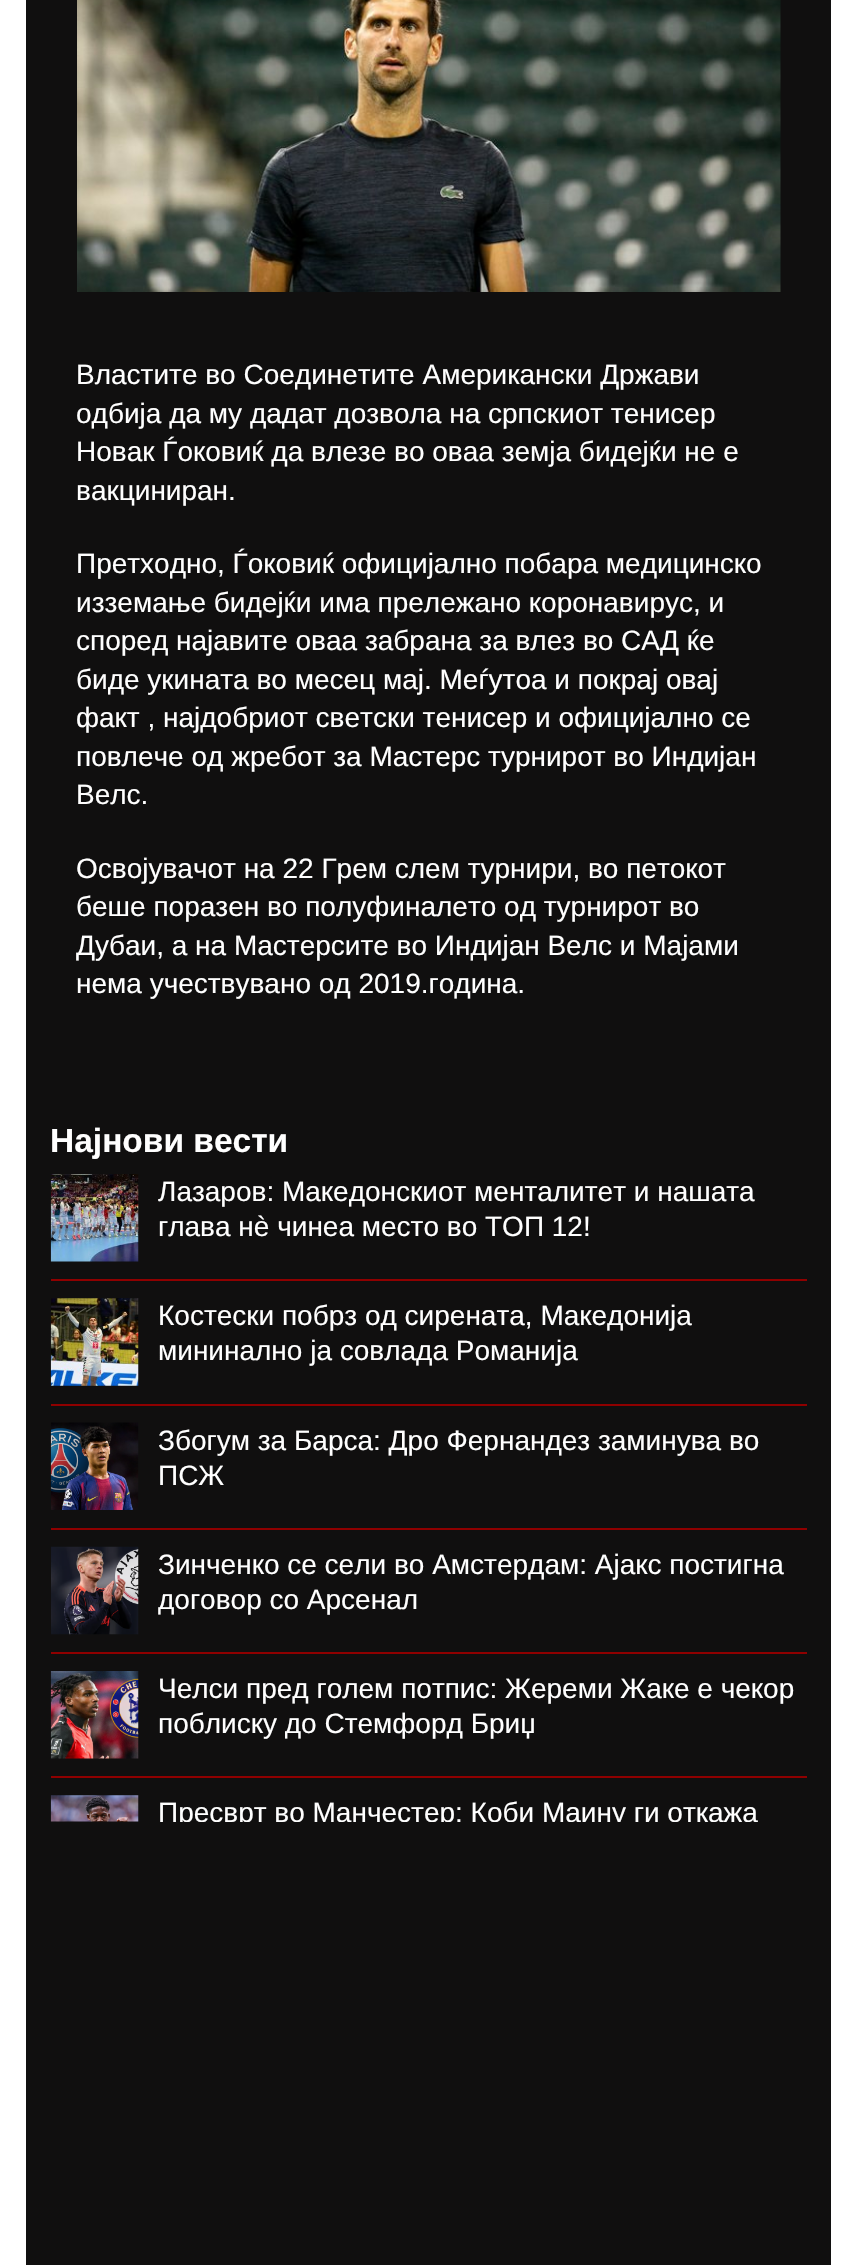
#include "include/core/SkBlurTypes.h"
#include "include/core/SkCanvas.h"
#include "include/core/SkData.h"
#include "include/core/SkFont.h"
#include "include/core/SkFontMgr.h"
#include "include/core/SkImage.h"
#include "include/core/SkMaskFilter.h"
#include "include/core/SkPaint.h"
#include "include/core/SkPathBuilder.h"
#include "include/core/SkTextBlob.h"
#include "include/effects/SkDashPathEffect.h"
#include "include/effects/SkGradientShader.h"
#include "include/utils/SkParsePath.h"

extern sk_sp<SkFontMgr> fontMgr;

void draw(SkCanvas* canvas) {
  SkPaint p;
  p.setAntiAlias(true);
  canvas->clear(SK_ColorWHITE);
  p.setColor(SkColorSetRGB(16, 15, 15));
  canvas->drawRect(SkRect::MakeLTRB(26, 0, 831, 2265), p);
  canvas->drawImageRect(SkImages::DeferredFromEncodedData(SkData::MakeFromFileName("images/1.png")), SkRect::MakeLTRB(77, 0, 781, 292), SkSamplingOptions());
  p.setColor(SkColorSetRGB(143, 0, 0));
  canvas->drawRect(SkRect::MakeLTRB(51, 1279, 807, 1281), p);
  canvas->drawImageRect(SkImages::DeferredFromEncodedData(SkData::MakeFromFileName("images/2.png")), SkRect::MakeLTRB(50, 1174, 139, 1262), SkSamplingOptions());
  canvas->drawRect(SkRect::MakeLTRB(51, 1404, 807, 1406), p);
  canvas->drawImageRect(SkImages::DeferredFromEncodedData(SkData::MakeFromFileName("images/3.png")), SkRect::MakeLTRB(50, 1298, 139, 1386), SkSamplingOptions());
  canvas->drawRect(SkRect::MakeLTRB(51, 1528, 807, 1530), p);
  canvas->drawImageRect(SkImages::DeferredFromEncodedData(SkData::MakeFromFileName("images/4.png")), SkRect::MakeLTRB(50, 1422, 139, 1510), SkSamplingOptions());
  canvas->drawRect(SkRect::MakeLTRB(51, 1652, 807, 1654), p);
  canvas->drawImageRect(SkImages::DeferredFromEncodedData(SkData::MakeFromFileName("images/5.png")), SkRect::MakeLTRB(51, 1546, 139, 1635), SkSamplingOptions());
  canvas->drawRect(SkRect::MakeLTRB(51, 1776, 807, 1778), p);
  canvas->drawImageRect(SkImages::DeferredFromEncodedData(SkData::MakeFromFileName("images/6.png")), SkRect::MakeLTRB(50, 1671, 139, 1759), SkSamplingOptions());
  canvas->drawImageRect(SkImages::DeferredFromEncodedData(SkData::MakeFromFileName("images/7.png")), SkRect::MakeLTRB(50, 1795, 139, 1822), SkSamplingOptions());
  SkFont font1(fontMgr->matchFamilyStyle("Liberation Sans", SkFontStyle::Normal()), 28);
  font1.setSubpixel(true);
  p.setColor(SK_ColorWHITE);
  canvas->drawString("Властите во Соединетите Американски Држави", 76, 384, font1, p);
  canvas->drawString("одбија да му дадат дозвола на српскиот тенисер", 76, 423, font1, p);
  canvas->drawString("Новак Ѓоковиќ да влезе во оваа земја бидејќи не е", 76, 461, font1, p);
  canvas->drawString("вакциниран.", 76, 500, font1, p);
  canvas->drawString("Претходно, Ѓоковиќ официјално побара медицинско", 76, 573, font1, p);
  canvas->drawString("изземање бидејќи има прележано коронавирус, и", 76, 612, font1, p);
  canvas->drawString("според најавите оваа забрана за влез во САД ќе", 76, 650, font1, p);
  canvas->drawString("биде укината во месец мај. Меѓутоа и покрај овај", 76, 689, font1, p);
  canvas->drawString("факт , најдобриот светски тенисер и официјално се", 76, 727, font1, p);
  canvas->drawString("повлече од жребот за Мастерс турнирот во Индијан", 76, 766, font1, p);
  canvas->drawString("Велс.", 76, 804, font1, p);
  canvas->drawString("Освојувачот на 22 Грем слем турнири, во петокот", 76, 878, font1, p);
  canvas->drawString("беше поразен во полуфиналето од турнирот во", 76, 916, font1, p);
  canvas->drawString("Дубаи, а на Мастерсите во Индијан Велс и Мајами", 76, 955, font1, p);
  canvas->drawString("нема учествувано од 2019.година.", 76, 993, font1, p);
  SkFont font2(fontMgr->matchFamilyStyle("Liberation Sans", SkFontStyle::Bold()), 33.5f);
  font2.setSubpixel(true);
  canvas->drawString("Најнови вести", 50, 1152, font2, p);
  canvas->drawString("Лазаров: Македонскиот менталитет и нашата", 158, 1201, font1, p);
  canvas->drawString("глава нè чинеа место во ТОП 12!", 158, 1236, font1, p);
  canvas->drawString("Костески побрз од сирената, Македонија", 158, 1325, font1, p);
  canvas->drawString("мининално ја совлада Романија", 158, 1360, font1, p);
  canvas->drawString("Збогум за Барса: Дро Фернандез заминува во", 158, 1450, font1, p);
  canvas->drawString("ПСЖ", 158, 1485, font1, p);
  canvas->drawString("Зинченко се сели во Амстердам: Ајакс постигна", 158, 1574, font1, p);
  canvas->drawString("договор со Арсенал", 158, 1609, font1, p);
  canvas->drawString("Челси пред голем потпис: Жереми Жаке е чекор", 158, 1698, font1, p);
  canvas->drawString("поблиску до Стемфорд Бриџ", 158, 1733, font1, p);
  canvas->save();
  canvas->clipRect(SkRect::MakeLTRB(51, 1174, 807, 1822));
  canvas->drawString("Пресврт во Манчестер: Коби Маину ги откажа", 158, 1822, font1, p);
  canvas->restore();
}
